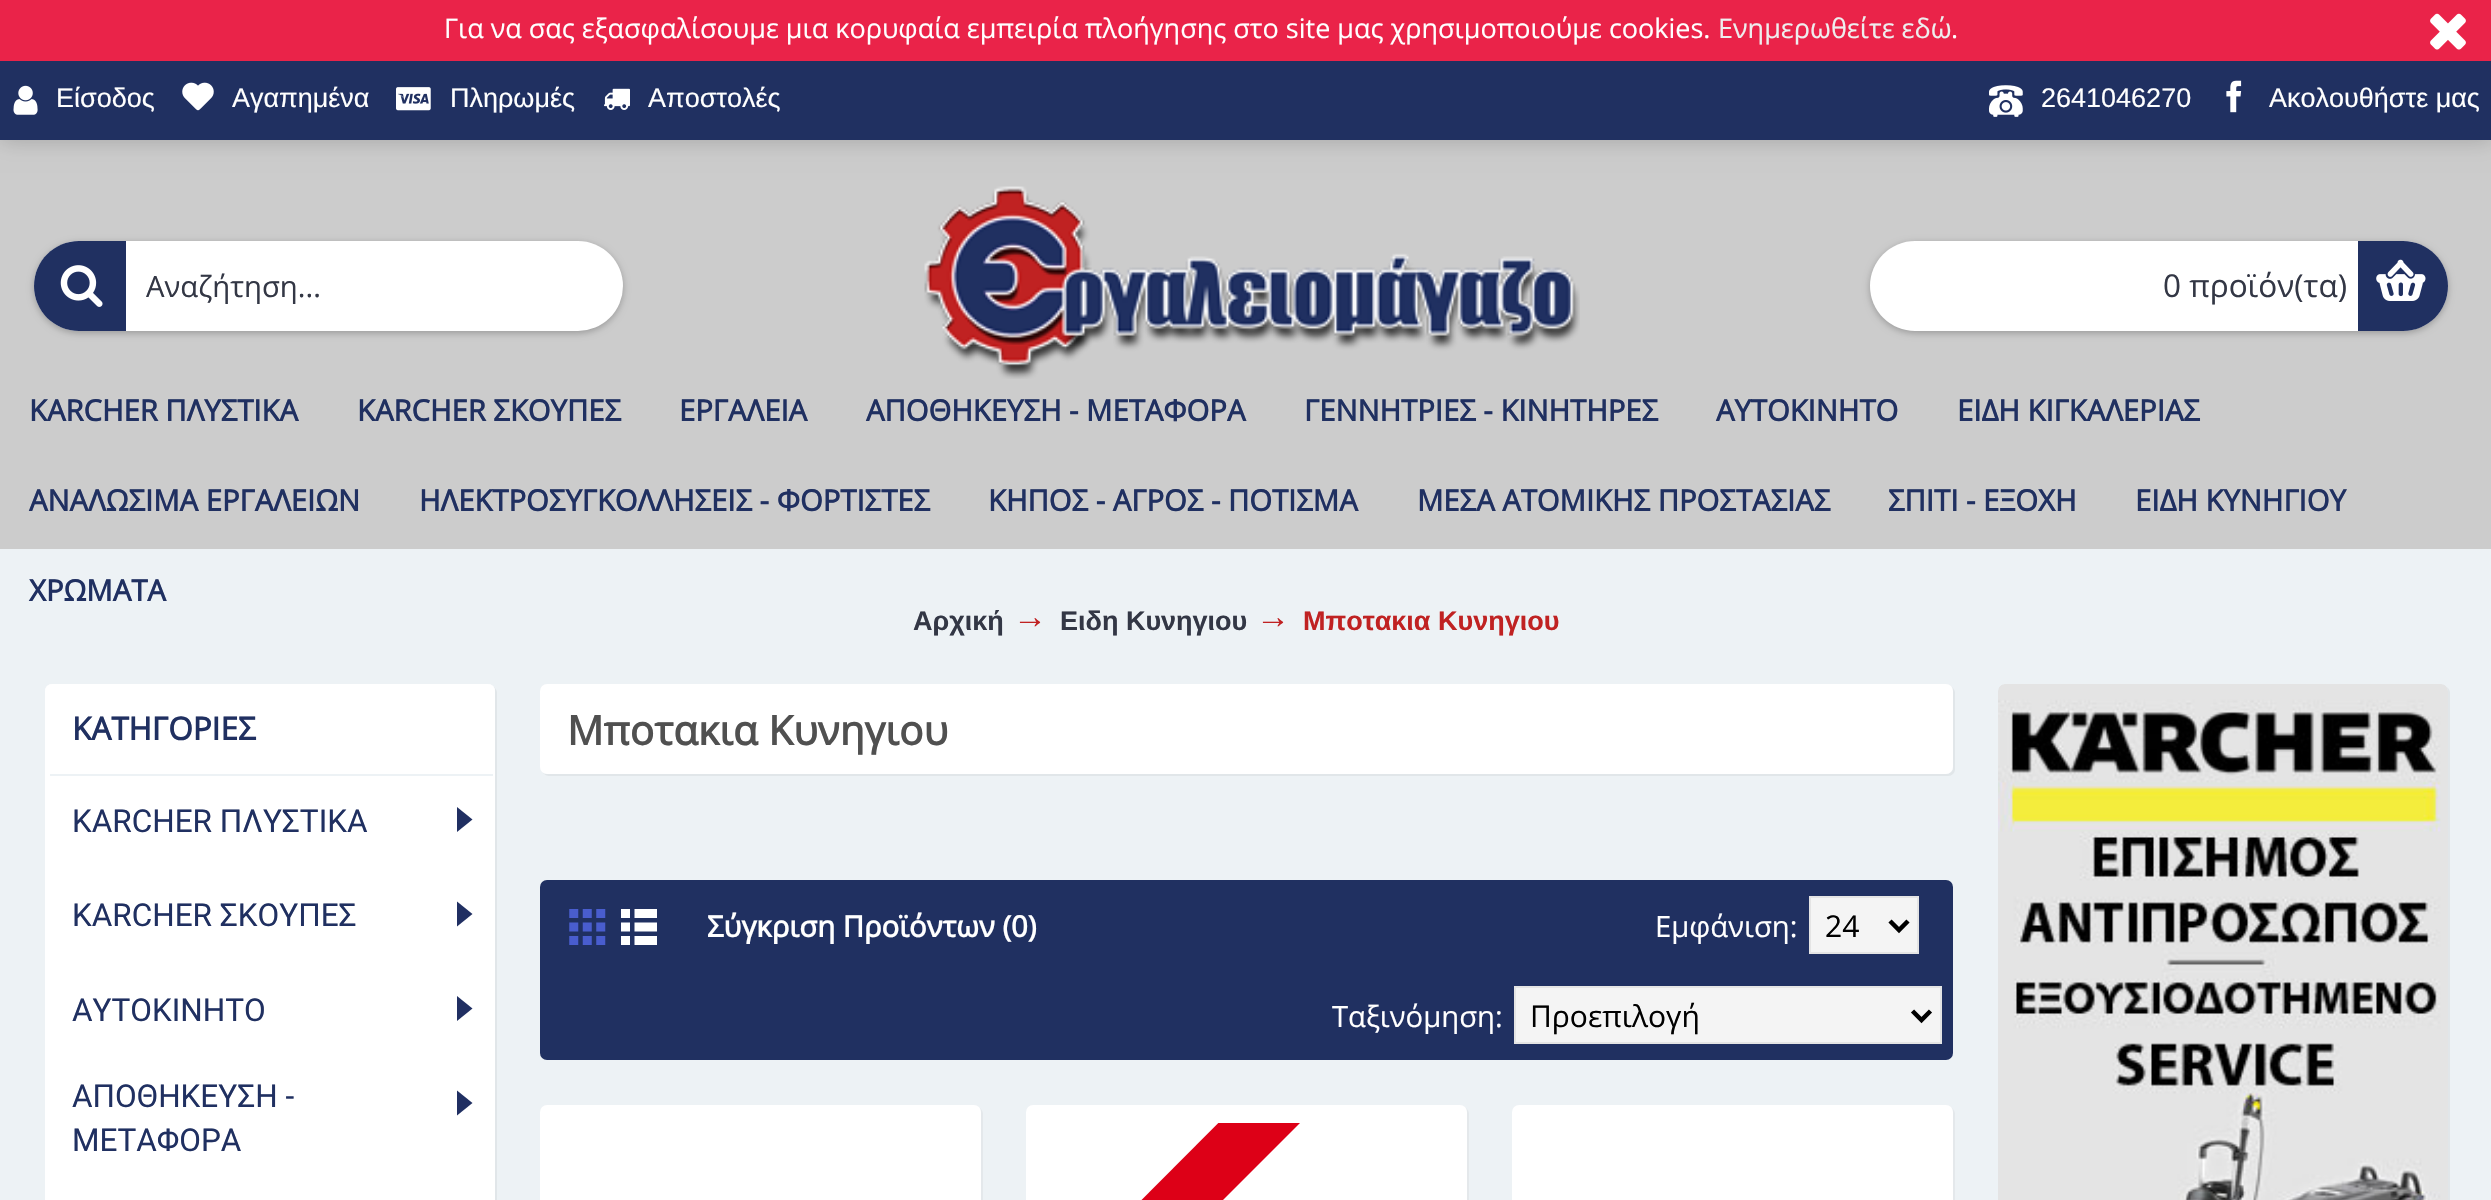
#include "include/core/SkBlurTypes.h"
#include "include/core/SkCanvas.h"
#include "include/core/SkData.h"
#include "include/core/SkFont.h"
#include "include/core/SkFontMgr.h"
#include "include/core/SkImage.h"
#include "include/core/SkMaskFilter.h"
#include "include/core/SkPaint.h"
#include "include/core/SkPathBuilder.h"
#include "include/core/SkTextBlob.h"
#include "include/effects/SkDashPathEffect.h"
#include "include/effects/SkGradientShader.h"
#include "include/utils/SkParsePath.h"

extern sk_sp<SkFontMgr> fontMgr;

void draw(SkCanvas* canvas) {
  SkPaint p;
  p.setAntiAlias(true);
  canvas->clear(SkColorSetRGB(237, 242, 245));
  p.setColor(SkColorSetRGB(204, 204, 204));
  canvas->drawRect(SkRect::MakeLTRB(0, 140, 2491, 549), p);
  p.setColor(SkColorSetARGB(51, 0, 0, 0));
  p.setMaskFilter(SkMaskFilter::MakeBlur(kNormal_SkBlurStyle, 11));
  canvas->drawRect(SkRect::MakeLTRB(0, 61, 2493, 140), p);
  p.setMaskFilter(nullptr);
  p.setColor(SkColorSetRGB(234, 35, 73));
  canvas->drawRect(SkRect::MakeLTRB(0, 0, 2491, 61), p);
  canvas->drawImageRect(SkImages::DeferredFromEncodedData(SkData::MakeFromFileName("images/1.png")), SkRect::MakeLTRB(2430, 13, 2466, 50), SkSamplingOptions());
  p.setColor(SkColorSetRGB(32, 48, 97));
  canvas->drawRect(SkRect::MakeLTRB(0, 61, 2491, 140), p);
  canvas->drawImageRect(SkImages::DeferredFromEncodedData(SkData::MakeFromFileName("images/2.png")), SkRect::MakeLTRB(13, 85, 38, 115), SkSamplingOptions());
  canvas->drawImageRect(SkImages::DeferredFromEncodedData(SkData::MakeFromFileName("images/3.png")), SkRect::MakeLTRB(182, 82, 214, 111), SkSamplingOptions());
  canvas->drawImageRect(SkImages::DeferredFromEncodedData(SkData::MakeFromFileName("images/4.png")), SkRect::MakeLTRB(396, 87, 431, 111), SkSamplingOptions());
  canvas->drawImageRect(SkImages::DeferredFromEncodedData(SkData::MakeFromFileName("images/5.png")), SkRect::MakeLTRB(604, 88, 630, 110), SkSamplingOptions());
  canvas->drawImageRect(SkImages::DeferredFromEncodedData(SkData::MakeFromFileName("images/6.png")), SkRect::MakeLTRB(1989, 85, 2023, 117), SkSamplingOptions());
  canvas->drawImageRect(SkImages::DeferredFromEncodedData(SkData::MakeFromFileName("images/7.png")), SkRect::MakeLTRB(2226, 80, 2242, 113), SkSamplingOptions());
  p.setColor(SkColorSetARGB(64, 0, 0, 0));
  p.setMaskFilter(SkMaskFilter::MakeBlur(kNormal_SkBlurStyle, 3.5f));
  canvas->drawRoundRect(SkRect::MakeLTRB(34, 243, 623, 333), 45, 45, p);
  p.setMaskFilter(nullptr);
  p.setColor(SK_ColorWHITE);
  canvas->drawRoundRect(SkRect::MakeLTRB(34, 241, 623, 331), 45, 45, p);
  p.setColor(SkColorSetRGB(32, 48, 97));
  canvas->drawPath(SkPathBuilder().moveTo(79, 241).lineTo(126, 241).lineTo(126, 331).lineTo(79, 331).cubicTo(54, 331, 34, 311, 34, 286).cubicTo(34, 261, 54, 241, 79, 241).close().detach(), p);
  canvas->drawImageRect(SkImages::DeferredFromEncodedData(SkData::MakeFromFileName("images/8.png")), SkRect::MakeLTRB(60, 265, 103, 307), SkSamplingOptions());
  canvas->drawImageRect(SkImages::DeferredFromEncodedData(SkData::MakeFromFileName("images/9.png")), SkRect::MakeLTRB(924, 186, 1580, 379), SkSamplingOptions());
  p.setColor(SkColorSetARGB(64, 0, 0, 0));
  p.setMaskFilter(SkMaskFilter::MakeBlur(kNormal_SkBlurStyle, 3.5f));
  canvas->drawRoundRect(SkRect::MakeLTRB(1870, 243, 2448, 333), 45, 45, p);
  p.setMaskFilter(nullptr);
  p.setColor(SK_ColorWHITE);
  canvas->drawRoundRect(SkRect::MakeLTRB(1870, 241, 2448, 331), 45, 45, p);
  p.setColor(SkColorSetRGB(32, 48, 97));
  canvas->drawPath(SkPathBuilder().moveTo(2358, 241).lineTo(2403, 241).cubicTo(2428, 241, 2448, 261, 2448, 286).cubicTo(2448, 311, 2428, 331, 2403, 331).lineTo(2358, 331).close().detach(), p);
  canvas->drawImageRect(SkImages::DeferredFromEncodedData(SkData::MakeFromFileName("images/10.png")), SkRect::MakeLTRB(2376, 259, 2426, 301), SkSamplingOptions());
  p.setColor(SkColorSetRGB(225, 230, 233));
  canvas->drawPath(SkPathBuilder().moveTo(48, 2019).cubicTo(49, 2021, 51, 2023, 54, 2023).lineTo(490, 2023).cubicTo(494, 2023, 497, 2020, 497, 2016).lineTo(497, 693).cubicTo(497, 691, 496, 689, 494, 687).lineTo(495, 691).lineTo(495, 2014).cubicTo(495, 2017, 492, 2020, 488, 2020).lineTo(52, 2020).cubicTo(50, 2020, 49, 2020, 48, 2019).close().detach(), p);
  p.setColor(SK_ColorWHITE);
  canvas->drawRoundRect(SkRect::MakeLTRB(45, 684, 495, 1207), 7, 7, p);
  canvas->drawPath(SkPathBuilder().moveTo(52, 684).lineTo(488, 684).cubicTo(492, 684, 495, 687, 495, 691).lineTo(495, 770).cubicTo(495, 772, 492, 774, 488, 774).lineTo(52, 774).cubicTo(48, 774, 45, 772, 45, 770).lineTo(45, 691).cubicTo(45, 687, 48, 684, 52, 684).close().detach(), p);
  p.setColor(SkColorSetRGB(237, 242, 245));
  canvas->drawRect(SkRect::MakeLTRB(50, 774, 493, 776), p);
  p.setColor(SkColorSetRGB(32, 47, 98));
  canvas->drawPath(SkPathBuilder().moveTo(457, 807).lineTo(457, 832).lineTo(472.5f, 819.5f).close().detach(), p);
  canvas->drawPath(SkPathBuilder().moveTo(457, 901.5f).lineTo(457, 926.5f).lineTo(472.5f, 914).close().detach(), p);
  canvas->drawPath(SkPathBuilder().moveTo(457, 996).lineTo(457, 1021).lineTo(472.5f, 1008.5f).close().detach(), p);
  canvas->drawPath(SkPathBuilder().moveTo(457, 1090.5f).lineTo(457, 1115.5f).lineTo(472.5f, 1103).close().detach(), p);
  p.setColor(SkColorSetRGB(225, 230, 233));
  canvas->drawPath(SkPathBuilder().moveTo(543, 773).cubicTo(545, 775, 547, 776, 549, 776).lineTo(1948, 776).cubicTo(1952, 776, 1955, 773, 1955, 769).lineTo(1955, 693).cubicTo(1955, 691, 1954, 689, 1952, 687).lineTo(1953, 691).lineTo(1953, 767).cubicTo(1953, 771, 1950, 774, 1946, 774).lineTo(547, 774).close().detach(), p);
  p.setColor(SK_ColorWHITE);
  canvas->drawRoundRect(SkRect::MakeLTRB(540, 684, 1953, 774), 7, 7, p);
  p.setColor(SkColorSetRGB(32, 48, 97));
  canvas->drawRoundRect(SkRect::MakeLTRB(540, 880, 1953, 1060), 7, 7, p);
  canvas->drawImageRect(SkImages::DeferredFromEncodedData(SkData::MakeFromFileName("images/11.png")), SkRect::MakeLTRB(569, 909, 606, 945), SkSamplingOptions());
  canvas->drawImageRect(SkImages::DeferredFromEncodedData(SkData::MakeFromFileName("images/12.png")), SkRect::MakeLTRB(621, 909, 657, 945), SkSamplingOptions());
  p.setColor(SkColorSetRGB(244, 244, 244));
  canvas->drawRect(SkRect::MakeLTRB(1810, 897, 1918, 953), p);
  p.setStyle(SkPaint::kStroke_Style);
  p.setStrokeWidth(2);
  p.setColor(SkColorSetRGB(228, 228, 228));
  canvas->drawRect(SkRect::MakeLTRB(1810, 897, 1918, 953), p);
  p.setStrokeWidth(4.5f);
  p.setColor(SK_ColorBLACK);
  canvas->drawPath(SkPathBuilder().moveTo(1890, 921).lineTo(1899, 930).lineTo(1908, 921).detach(), p);
  p.setStyle(SkPaint::kFill_Style);
  p.setColor(SkColorSetRGB(244, 244, 244));
  canvas->drawRect(SkRect::MakeLTRB(1515, 987, 1941, 1043), p);
  p.setStyle(SkPaint::kStroke_Style);
  p.setStrokeWidth(2);
  p.setColor(SkColorSetRGB(228, 228, 228));
  canvas->drawRect(SkRect::MakeLTRB(1515, 987, 1941, 1043), p);
  p.setStrokeWidth(4.5f);
  p.setColor(SK_ColorBLACK);
  canvas->drawPath(SkPathBuilder().moveTo(1912.5f, 1011).lineTo(1921.5f, 1020).lineTo(1930.5f, 1011).detach(), p);
  p.setStyle(SkPaint::kFill_Style);
  p.setColor(SkColorSetRGB(228, 232, 235));
  canvas->drawPath(SkPathBuilder().moveTo(543, 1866).cubicTo(544, 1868, 546, 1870, 549, 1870).lineTo(976, 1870).cubicTo(980, 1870, 983, 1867, 983, 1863).lineTo(983, 1114).cubicTo(983, 1112, 982, 1110, 980, 1108).lineTo(981, 1112).lineTo(981, 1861).cubicTo(981, 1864, 978, 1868, 974, 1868).lineTo(547, 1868).cubicTo(545, 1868, 544, 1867, 543, 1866).close().detach(), p);
  p.setColor(SK_ColorWHITE);
  canvas->drawRoundRect(SkRect::MakeLTRB(540, 1105, 981, 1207), 7, 7, p);
  p.setColor(SkColorSetRGB(228, 232, 235));
  canvas->drawPath(SkPathBuilder().moveTo(1029, 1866).cubicTo(1030, 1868, 1032, 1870, 1035, 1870).lineTo(1462, 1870).cubicTo(1466, 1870, 1469, 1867, 1469, 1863).lineTo(1469, 1114).cubicTo(1469, 1112, 1468, 1110, 1466, 1108).lineTo(1467, 1112).lineTo(1467, 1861).cubicTo(1467, 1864, 1464, 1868, 1460, 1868).lineTo(1033, 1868).cubicTo(1031, 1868, 1030, 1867, 1029, 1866).close().detach(), p);
  p.setColor(SK_ColorWHITE);
  canvas->drawRoundRect(SkRect::MakeLTRB(1026, 1105, 1467, 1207), 7, 7, p);
  canvas->save();
  canvas->clipRect(SkRect::MakeLTRB(1044, 1123, 1449, 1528));
  p.setColor(SkColorSetRGB(221, 0, 23));
  canvas->drawPath(SkPathBuilder().moveTo(960, 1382).lineTo(1323, 1018).lineTo(1364, 1059).lineTo(1000, 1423).close().detach(), p);
  canvas->restore();
  p.setColor(SkColorSetRGB(228, 232, 235));
  canvas->drawPath(SkPathBuilder().moveTo(1515, 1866).cubicTo(1516, 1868, 1518, 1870, 1521, 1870).lineTo(1948, 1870).cubicTo(1952, 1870, 1955, 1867, 1955, 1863).lineTo(1955, 1114).cubicTo(1955, 1112, 1954, 1110, 1952, 1108).lineTo(1953, 1112).lineTo(1953, 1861).cubicTo(1953, 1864, 1950, 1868, 1946, 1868).lineTo(1519, 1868).cubicTo(1517, 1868, 1516, 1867, 1515, 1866).close().detach(), p);
  p.setColor(SK_ColorWHITE);
  canvas->drawRoundRect(SkRect::MakeLTRB(1512, 1105, 1953, 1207), 7, 7, p);
  p.setColor(SkColorSetRGB(225, 230, 233));
  canvas->drawPath(SkPathBuilder().moveTo(2001, 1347).cubicTo(2002, 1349, 2004, 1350, 2007, 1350).lineTo(2443, 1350).cubicTo(2447, 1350, 2450, 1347, 2450, 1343).lineTo(2450, 693).cubicTo(2450, 691, 2449, 689, 2447, 687).lineTo(2448, 691).lineTo(2448, 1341).cubicTo(2448, 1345, 2445, 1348, 2441, 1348).lineTo(2005, 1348).cubicTo(2003, 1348, 2002, 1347, 2001, 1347).close().detach(), p);
  canvas->drawImageRect(SkImages::DeferredFromEncodedData(SkData::MakeFromFileName("images/13.png")), SkRect::MakeLTRB(1998, 684, 2448, 1200), SkSamplingOptions());
  SkFont font1(fontMgr->matchFamilyStyle("Open Sans", SkFontStyle::Normal()), 27);
  font1.setSubpixel(true);
  p.setColor(SK_ColorWHITE);
  canvas->drawString("Για να σας εξασφαλίσουμε μια κορυφαία εμπειρία πλοήγησης στο site μας χρησιμοποιούμε cookies.", 444, 38, font1, p);
  p.setColor(SkColorSetRGB(238, 238, 238));
  canvas->drawString("Ενημερωθείτε εδώ", 1718, 38, font1, p);
  p.setColor(SK_ColorWHITE);
  canvas->drawString(".", 1951, 38, font1, p);
  SkFont font2(fontMgr->matchFamilyStyle("Liberation Sans", SkFontStyle::Normal()), 27);
  font2.setSubpixel(true);
  canvas->drawString("Είσοδος", 56, 107, font2, p);
  canvas->drawString("Αγαπημένα", 232, 107, font2, p);
  canvas->drawString("Πληρωμές", 450, 107, font2, p);
  canvas->drawString("Αποστολές", 648, 107, font2, p);
  canvas->drawString("2641046270", 2041, 107, font2, p);
  canvas->drawString("Ακολουθήστε μας", 2269, 107, font2, p);
  SkFont font3(fontMgr->matchFamilyStyle("Open Sans", SkFontStyle::Normal()), 29.25f);
  font3.setSubpixel(true);
  p.setColor(SkColorSetRGB(51, 55, 69));
  canvas->drawString("Αναζήτηση...", 146, 297, font3, p);
  SkFont font4(fontMgr->matchFamilyStyle("Open Sans", SkFontStyle::Normal()), 31.5f);
  font4.setSubpixel(true);
  canvas->drawString("0 προϊόν(τα)", 2163, 297, font4, p);
  SkFont font5(fontMgr->matchFamilyStyle("Open Sans", SkFontStyle::Bold()), 29.25f);
  font5.setSubpixel(true);
  p.setColor(SkColorSetRGB(32, 48, 97));
  canvas->drawString("KARCHER ΠΛΥΣΤΙΚΑ", 29, 421, font5, p);
  canvas->drawString("KARCHER ΣΚΟΥΠΕΣ", 357, 421, font5, p);
  canvas->drawString("ΕΡΓΑΛΕΙΑ", 679, 421, font5, p);
  canvas->drawString("ΑΠΟΘΗΚΕΥΣΗ - ΜΕΤΑΦΟΡΑ", 866, 421, font5, p);
  canvas->drawString("ΓΕΝΝΗΤΡΙΕΣ - ΚΙΝΗΤΗΡΕΣ", 1304, 421, font5, p);
  canvas->drawString("ΑΥΤΟΚΙΝΗΤΟ", 1716, 421, font5, p);
  canvas->drawString("ΕΙΔΗ ΚΙΓΚΑΛΕΡΙΑΣ", 1957, 421, font5, p);
  canvas->drawString("ΑΝΑΛΩΣΙΜΑ ΕΡΓΑΛΕΙΩΝ", 29, 511, font5, p);
  canvas->drawString("ΗΛΕΚΤΡΟΣΥΓΚΟΛΛΗΣΕΙΣ - ΦΟΡΤΙΣΤΕΣ", 419, 511, font5, p);
  canvas->drawString("ΚΗΠΟΣ - ΑΓΡΟΣ - ΠΟΤΙΣΜΑ", 988, 511, font5, p);
  canvas->drawString("ΜΕΣΑ ΑΤΟΜΙΚΗΣ ΠΡΟΣΤΑΣΙΑΣ", 1417, 511, font5, p);
  canvas->drawString("ΣΠΙΤΙ - ΕΞΟΧΗ", 1888, 511, font5, p);
  canvas->drawString("ΕΙΔΗ ΚΥΝΗΓΙΟΥ", 2135, 511, font5, p);
  canvas->drawString("ΧΡΩΜΑΤΑ", 29, 601, font5, p);
  SkFont font6(fontMgr->matchFamilyStyle("Liberation Sans", SkFontStyle::Bold()), 27);
  font6.setSubpixel(true);
  p.setColor(SkColorSetRGB(51, 55, 69));
  canvas->drawString("Αρχική", 913, 630, font6, p);
  SkFont font7(fontMgr->matchFamilyStyle("Liberation Serif", SkFontStyle::Normal()), 34);
  font7.setSubpixel(true);
  p.setColor(SkColorSetRGB(192, 34, 34));
  canvas->drawString("→", 1013, 628, font7, p);
  p.setColor(SkColorSetRGB(51, 55, 69));
  canvas->drawString("Ειδη Κυνηγιου", 1060, 630, font6, p);
  p.setColor(SkColorSetRGB(192, 34, 34));
  canvas->drawString("→", 1256, 628, font7, p);
  canvas->drawString("Μποτακια Κυνηγιου", 1303, 630, font6, p);
  SkFont font8(fontMgr->matchFamilyStyle("Open Sans", SkFontStyle::Bold()), 31.5f);
  font8.setSubpixel(true);
  p.setColor(SkColorSetRGB(32, 48, 97));
  canvas->drawString("ΚΑΤΗΓΟΡΙΕΣ", 72, 740, font8, p);
  SkFont font9(fontMgr->matchFamilyStyle("Roboto", SkFontStyle::Normal()), 31.5f);
  font9.setSubpixel(true);
  canvas->drawString("KARCHER ΠΛΥΣΤΙΚΑ", 72, 832, font9, p);
  canvas->drawString("KARCHER ΣΚΟΥΠΕΣ", 72, 926, font9, p);
  canvas->drawString("ΑΥΤΟΚΙΝΗΤΟ", 72, 1021, font9, p);
  canvas->drawString("ΑΠΟΘΗΚΕΥΣΗ -", 72, 1107, font9, p);
  canvas->drawString("ΜΕΤΑΦΟΡΑ", 72, 1151, font9, p);
  SkFont font10(fontMgr->matchFamilyStyle("Open Sans", SkFontStyle::Bold()), 40.5f);
  font10.setSubpixel(true);
  p.setColor(SkColorSetRGB(80, 80, 80));
  canvas->drawString("Μποτακια Κυνηγιου", 567, 745, font10, p);
  p.setColor(SK_ColorWHITE);
  canvas->drawString("Σύγκριση Προϊόντων (0)", 707, 937, font5, p);
  canvas->drawString("Εμφάνιση:", 1655, 937, font3, p);
  SkFont font11(fontMgr->matchFamilyStyle("Open Sans", SkFontStyle::Normal()), 30);
  font11.setSubpixel(true);
  p.setColor(SK_ColorBLACK);
  canvas->drawString("24", 1825, 937, font11, p);
  p.setColor(SK_ColorWHITE);
  canvas->drawString("Ταξινόμηση:", 1332, 1027, font3, p);
  p.setColor(SK_ColorBLACK);
  canvas->drawString("Προεπιλογή", 1530, 1027, font11, p);
}
